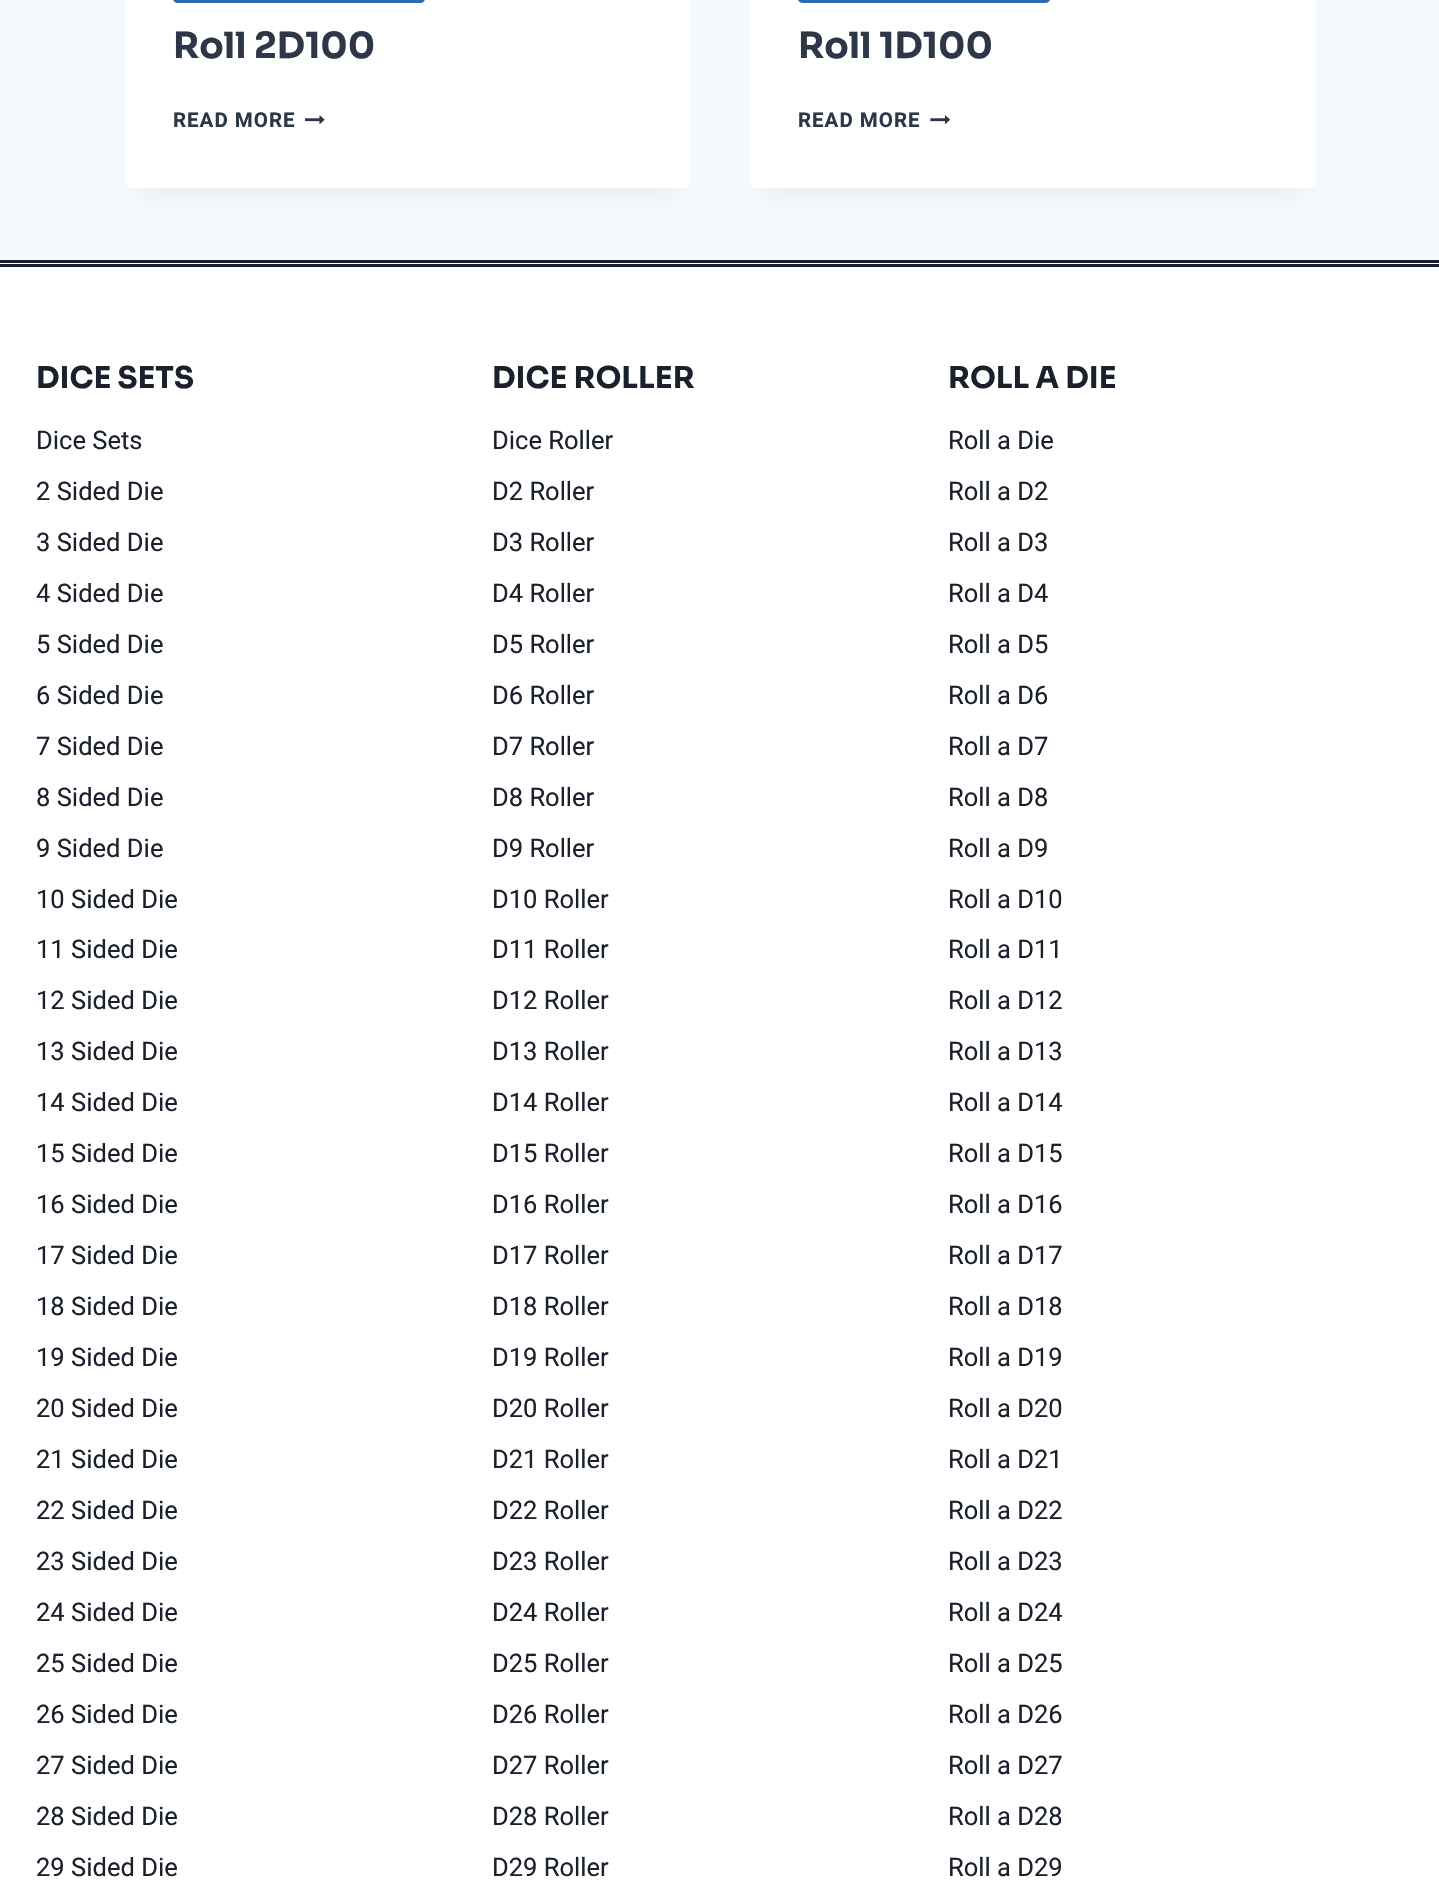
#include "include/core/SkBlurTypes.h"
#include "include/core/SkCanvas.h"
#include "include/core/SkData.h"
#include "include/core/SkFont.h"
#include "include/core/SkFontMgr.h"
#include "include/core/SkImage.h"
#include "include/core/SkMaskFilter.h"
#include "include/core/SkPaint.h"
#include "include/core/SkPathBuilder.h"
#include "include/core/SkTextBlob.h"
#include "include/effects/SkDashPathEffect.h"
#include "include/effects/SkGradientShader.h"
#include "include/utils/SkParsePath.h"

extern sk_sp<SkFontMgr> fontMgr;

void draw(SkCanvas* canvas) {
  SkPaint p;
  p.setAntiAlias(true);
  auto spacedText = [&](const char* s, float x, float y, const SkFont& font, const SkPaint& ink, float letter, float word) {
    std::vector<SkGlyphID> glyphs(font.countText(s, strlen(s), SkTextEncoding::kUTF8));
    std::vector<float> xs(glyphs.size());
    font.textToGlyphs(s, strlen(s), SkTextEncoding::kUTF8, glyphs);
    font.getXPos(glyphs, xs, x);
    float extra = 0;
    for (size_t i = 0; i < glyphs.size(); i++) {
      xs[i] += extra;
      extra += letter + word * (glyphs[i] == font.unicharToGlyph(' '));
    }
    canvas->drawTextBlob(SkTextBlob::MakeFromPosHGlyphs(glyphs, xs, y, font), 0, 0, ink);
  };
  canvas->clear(SkColorSetRGB(247, 250, 252));
  p.setColor(SkColorSetARGB(13, 0, 0, 0));
  p.setMaskFilter(SkMaskFilter::MakeBlur(kNormal_SkBlurStyle, 11));
  canvas->drawRect(SkRect::MakeLTRB(140, -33, 675, 195), p);
  p.setMaskFilter(nullptr);
  p.setColor(SK_ColorWHITE);
  canvas->drawRoundRect(SkRect::MakeLTRB(125, -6, 690, 188), 6, 6, p);
  p.setColor(SkColorSetRGB(43, 108, 176));
  canvas->drawRoundRect(SkRect::MakeLTRB(173, -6, 425, 3), 6, 6, p);
  canvas->drawImageRect(SkImages::DeferredFromEncodedData(SkData::MakeFromFileName("images/1.png")), SkRect::MakeLTRB(305, 115, 325, 124), SkSamplingOptions());
  p.setColor(SkColorSetARGB(13, 0, 0, 0));
  p.setMaskFilter(SkMaskFilter::MakeBlur(kNormal_SkBlurStyle, 11));
  canvas->drawRect(SkRect::MakeLTRB(765, -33, 1301, 195), p);
  p.setMaskFilter(nullptr);
  p.setColor(SK_ColorWHITE);
  canvas->drawRoundRect(SkRect::MakeLTRB(750, -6, 1316, 188), 6, 6, p);
  p.setColor(SkColorSetRGB(43, 108, 176));
  canvas->drawRoundRect(SkRect::MakeLTRB(798, -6, 1050, 3), 6, 6, p);
  canvas->drawImageRect(SkImages::DeferredFromEncodedData(SkData::MakeFromFileName("images/2.png")), SkRect::MakeLTRB(930, 115, 950, 124), SkSamplingOptions());
  p.setColor(SK_ColorWHITE);
  canvas->drawRect(SkRect::MakeLTRB(0, 263, 1439, 1896), p);
  p.setColor(SkColorSetRGB(26, 32, 44));
  canvas->drawRect(SkRect::MakeLTRB(0, 260, 1439, 263), p);
  canvas->drawRect(SkRect::MakeLTRB(0, 264, 1439, 267), p);
  SkFont font1(fontMgr->matchFamilyStyle("Sora", SkFontStyle::Bold()), 36);
  font1.setSubpixel(true);
  p.setColor(SkColorSetRGB(45, 55, 72));
  canvas->drawString("Roll 2D100", 173, 58, font1, p);
  SkFont font2(fontMgr->matchFamilyStyle("Heebo", SkFontStyle::Bold()), 20.5f);
  font2.setSubpixel(true);
  spacedText("READ MORE", 173, 127, font2, p, 1, 0);
  canvas->drawString("Roll 1D100", 798, 58, font1, p);
  spacedText("READ MORE", 798, 127, font2, p, 1, 0);
  SkFont font3(fontMgr->matchFamilyStyle("Sora", SkFontStyle::Bold()), 30);
  font3.setSubpixel(true);
  p.setColor(SkColorSetRGB(26, 32, 44));
  canvas->drawString("DICE SETS", 36, 388, font3, p);
  SkFont font4(fontMgr->matchFamilyStyle("Heebo", SkFontStyle::Normal()), 25.5f);
  font4.setSubpixel(true);
  canvas->drawString("Dice Sets", 36, 449, font4, p);
  canvas->drawString("2 Sided Die", 36, 500, font4, p);
  canvas->drawString("3 Sided Die", 36, 551, font4, p);
  canvas->drawString("4 Sided Die", 36, 602, font4, p);
  canvas->drawString("5 Sided Die", 36, 653, font4, p);
  canvas->drawString("6 Sided Die", 36, 704, font4, p);
  canvas->drawString("7 Sided Die", 36, 755, font4, p);
  canvas->drawString("8 Sided Die", 36, 806, font4, p);
  canvas->drawString("9 Sided Die", 36, 857, font4, p);
  canvas->drawString("10 Sided Die", 36, 908, font4, p);
  canvas->drawString("11 Sided Die", 36, 958, font4, p);
  canvas->drawString("12 Sided Die", 36, 1009, font4, p);
  canvas->drawString("13 Sided Die", 36, 1060, font4, p);
  canvas->drawString("14 Sided Die", 36, 1111, font4, p);
  canvas->drawString("15 Sided Die", 36, 1162, font4, p);
  canvas->drawString("16 Sided Die", 36, 1213, font4, p);
  canvas->drawString("17 Sided Die", 36, 1264, font4, p);
  canvas->drawString("18 Sided Die", 36, 1315, font4, p);
  canvas->drawString("19 Sided Die", 36, 1366, font4, p);
  canvas->drawString("20 Sided Die", 36, 1417, font4, p);
  canvas->drawString("21 Sided Die", 36, 1468, font4, p);
  canvas->drawString("22 Sided Die", 36, 1519, font4, p);
  canvas->drawString("23 Sided Die", 36, 1570, font4, p);
  canvas->drawString("24 Sided Die", 36, 1621, font4, p);
  canvas->drawString("25 Sided Die", 36, 1672, font4, p);
  canvas->drawString("26 Sided Die", 36, 1723, font4, p);
  canvas->drawString("27 Sided Die", 36, 1774, font4, p);
  canvas->drawString("28 Sided Die", 36, 1825, font4, p);
  canvas->drawString("29 Sided Die", 36, 1876, font4, p);
  canvas->drawString("DICE ROLLER", 492, 388, font3, p);
  canvas->drawString("Dice Roller", 492, 449, font4, p);
  canvas->drawString("D2 Roller", 492, 500, font4, p);
  canvas->drawString("D3 Roller", 492, 551, font4, p);
  canvas->drawString("D4 Roller", 492, 602, font4, p);
  canvas->drawString("D5 Roller", 492, 653, font4, p);
  canvas->drawString("D6 Roller", 492, 704, font4, p);
  canvas->drawString("D7 Roller", 492, 755, font4, p);
  canvas->drawString("D8 Roller", 492, 806, font4, p);
  canvas->drawString("D9 Roller", 492, 857, font4, p);
  canvas->drawString("D10 Roller", 492, 908, font4, p);
  canvas->drawString("D11 Roller", 492, 958, font4, p);
  canvas->drawString("D12 Roller", 492, 1009, font4, p);
  canvas->drawString("D13 Roller", 492, 1060, font4, p);
  canvas->drawString("D14 Roller", 492, 1111, font4, p);
  canvas->drawString("D15 Roller", 492, 1162, font4, p);
  canvas->drawString("D16 Roller", 492, 1213, font4, p);
  canvas->drawString("D17 Roller", 492, 1264, font4, p);
  canvas->drawString("D18 Roller", 492, 1315, font4, p);
  canvas->drawString("D19 Roller", 492, 1366, font4, p);
  canvas->drawString("D20 Roller", 492, 1417, font4, p);
  canvas->drawString("D21 Roller", 492, 1468, font4, p);
  canvas->drawString("D22 Roller", 492, 1519, font4, p);
  canvas->drawString("D23 Roller", 492, 1570, font4, p);
  canvas->drawString("D24 Roller", 492, 1621, font4, p);
  canvas->drawString("D25 Roller", 492, 1672, font4, p);
  canvas->drawString("D26 Roller", 492, 1723, font4, p);
  canvas->drawString("D27 Roller", 492, 1774, font4, p);
  canvas->drawString("D28 Roller", 492, 1825, font4, p);
  canvas->drawString("D29 Roller", 492, 1876, font4, p);
  canvas->drawString("ROLL A DIE", 948, 388, font3, p);
  canvas->drawString("Roll a Die", 948, 449, font4, p);
  canvas->drawString("Roll a D2", 948, 500, font4, p);
  canvas->drawString("Roll a D3", 948, 551, font4, p);
  canvas->drawString("Roll a D4", 948, 602, font4, p);
  canvas->drawString("Roll a D5", 948, 653, font4, p);
  canvas->drawString("Roll a D6", 948, 704, font4, p);
  canvas->drawString("Roll a D7", 948, 755, font4, p);
  canvas->drawString("Roll a D8", 948, 806, font4, p);
  canvas->drawString("Roll a D9", 948, 857, font4, p);
  canvas->drawString("Roll a D10", 948, 908, font4, p);
  canvas->drawString("Roll a D11", 948, 958, font4, p);
  canvas->drawString("Roll a D12", 948, 1009, font4, p);
  canvas->drawString("Roll a D13", 948, 1060, font4, p);
  canvas->drawString("Roll a D14", 948, 1111, font4, p);
  canvas->drawString("Roll a D15", 948, 1162, font4, p);
  canvas->drawString("Roll a D16", 948, 1213, font4, p);
  canvas->drawString("Roll a D17", 948, 1264, font4, p);
  canvas->drawString("Roll a D18", 948, 1315, font4, p);
  canvas->drawString("Roll a D19", 948, 1366, font4, p);
  canvas->drawString("Roll a D20", 948, 1417, font4, p);
  canvas->drawString("Roll a D21", 948, 1468, font4, p);
  canvas->drawString("Roll a D22", 948, 1519, font4, p);
  canvas->drawString("Roll a D23", 948, 1570, font4, p);
  canvas->drawString("Roll a D24", 948, 1621, font4, p);
  canvas->drawString("Roll a D25", 948, 1672, font4, p);
  canvas->drawString("Roll a D26", 948, 1723, font4, p);
  canvas->drawString("Roll a D27", 948, 1774, font4, p);
  canvas->drawString("Roll a D28", 948, 1825, font4, p);
  canvas->drawString("Roll a D29", 948, 1876, font4, p);
}
